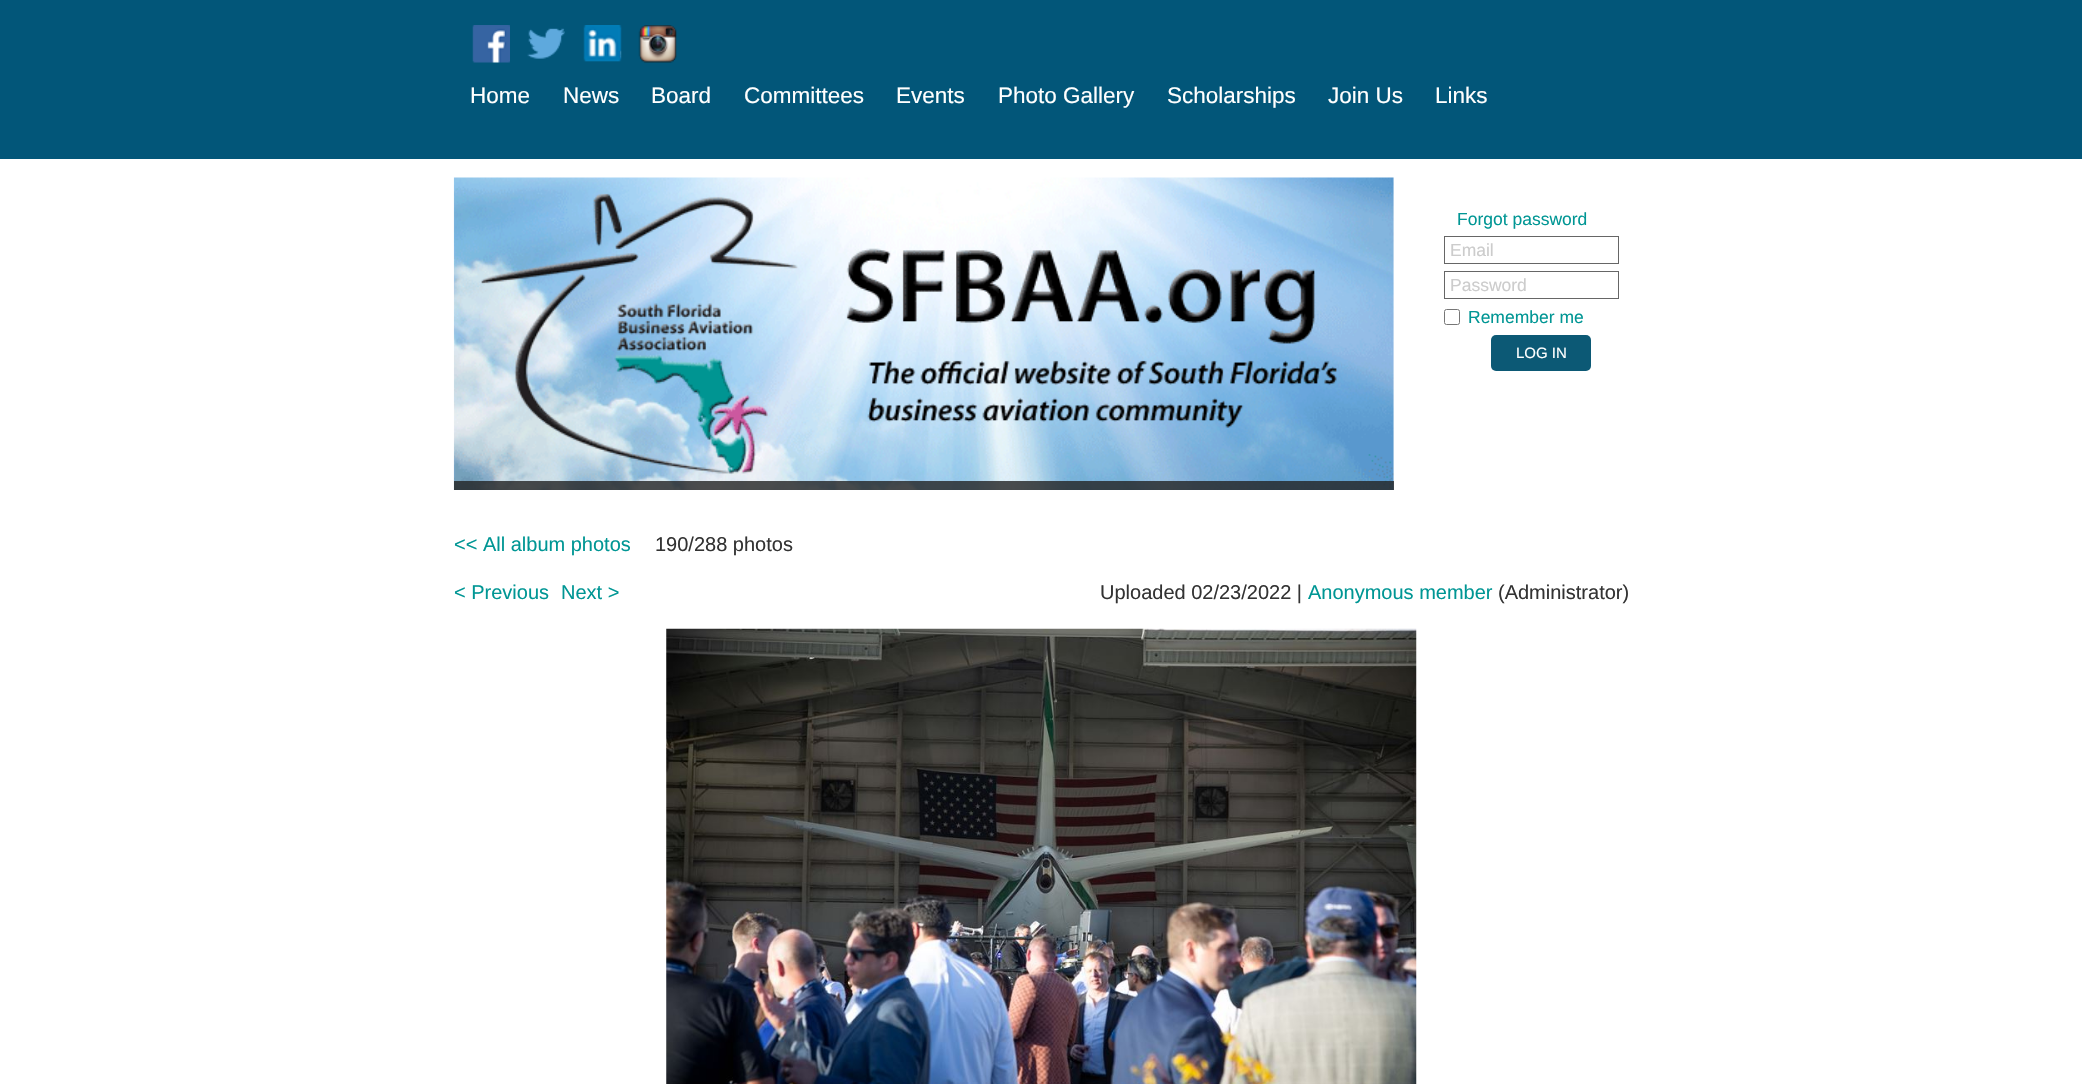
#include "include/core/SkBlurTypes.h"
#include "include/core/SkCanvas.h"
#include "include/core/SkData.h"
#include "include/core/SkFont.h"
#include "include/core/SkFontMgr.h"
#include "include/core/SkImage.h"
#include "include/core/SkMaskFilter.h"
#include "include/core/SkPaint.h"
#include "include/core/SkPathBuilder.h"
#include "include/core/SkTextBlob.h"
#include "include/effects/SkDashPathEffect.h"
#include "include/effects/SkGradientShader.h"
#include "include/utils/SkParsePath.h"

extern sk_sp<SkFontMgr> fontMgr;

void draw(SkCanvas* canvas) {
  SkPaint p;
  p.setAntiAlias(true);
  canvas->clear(SK_ColorWHITE);
  p.setColor(SkColorSetRGB(2, 86, 121));
  canvas->drawRect(SkRect::MakeLTRB(0, 0, 2082, 159), p);
  canvas->drawImageRect(SkImages::DeferredFromEncodedData(SkData::MakeFromFileName("images/1.png")), SkRect::MakeLTRB(472, 25, 510, 63), SkSamplingOptions());
  canvas->drawImageRect(SkImages::DeferredFromEncodedData(SkData::MakeFromFileName("images/2.png")), SkRect::MakeLTRB(527, 28, 565, 59), SkSamplingOptions());
  canvas->drawImageRect(SkImages::DeferredFromEncodedData(SkData::MakeFromFileName("images/3.png")), SkRect::MakeLTRB(583, 25, 622, 62), SkSamplingOptions());
  canvas->drawImageRect(SkImages::DeferredFromEncodedData(SkData::MakeFromFileName("images/4.png")), SkRect::MakeLTRB(638, 25, 677, 63), SkSamplingOptions());
  canvas->drawImageRect(SkImages::DeferredFromEncodedData(SkData::MakeFromFileName("images/5.png")), SkRect::MakeLTRB(453, 177, 1394, 490), SkSamplingOptions());
  p.setColor(SkColorSetARGB(204, 34, 34, 34));
  canvas->drawRect(SkRect::MakeLTRB(454, 481, 1394, 490), p);
  p.setStyle(SkPaint::kStroke_Style);
  p.setStrokeWidth(1);
  p.setColor(SkColorSetRGB(102, 102, 102));
  canvas->drawRect(SkRect::MakeLTRB(1444.5f, 236.5f, 1618.5f, 263.5f), p);
  canvas->drawRect(SkRect::MakeLTRB(1444.5f, 271.5f, 1618.5f, 298.5f), p);
  p.setColor(SkColorSetRGB(118, 118, 118));
  canvas->drawRoundRect(SkRect::MakeLTRB(1444.5f, 309.5f, 1459.5f, 324.5f), 2, 2, p);
  p.setStyle(SkPaint::kFill_Style);
  p.setColor(SkColorSetRGB(12, 89, 117));
  canvas->drawRoundRect(SkRect::MakeLTRB(1491, 335, 1591, 371), 5, 5, p);
  canvas->drawImageRect(SkImages::DeferredFromEncodedData(SkData::MakeFromFileName("images/6.png")), SkRect::MakeLTRB(666, 628, 1417, 1084), SkSamplingOptions());
  SkFont font1(fontMgr->matchFamilyStyle("Liberation Sans", SkFontStyle::Normal()), 22.5f);
  font1.setSubpixel(true);
  p.setColor(SK_ColorWHITE);
  canvas->drawString("Home", 470, 103, font1, p);
  canvas->drawString("News", 563, 103, font1, p);
  canvas->drawString("Board", 651, 103, font1, p);
  canvas->drawString("Committees", 744, 103, font1, p);
  canvas->drawString("Events", 896, 103, font1, p);
  canvas->drawString("Photo Gallery", 998, 103, font1, p);
  canvas->drawString("Scholarships", 1167, 103, font1, p);
  canvas->drawString("Join Us", 1328, 103, font1, p);
  canvas->drawString("Links", 1435, 103, font1, p);
  SkFont font2(fontMgr->matchFamilyStyle("Liberation Sans", SkFontStyle::Normal()), 17.5f);
  font2.setSubpixel(true);
  p.setColor(SkColorSetRGB(0, 150, 148));
  canvas->drawString("Forgot password", 1457, 225, font2, p);
  p.setColor(SkColorSetRGB(204, 204, 204));
  canvas->drawString("Email", 1450, 256, font2, p);
  canvas->drawString("Password", 1450, 291, font2, p);
  p.setColor(SkColorSetRGB(0, 150, 148));
  canvas->drawString("Remember me", 1468, 323, font2, p);
  SkFont font3(fontMgr->matchFamilyStyle("Liberation Sans", SkFontStyle::Normal()), 15);
  font3.setSubpixel(true);
  p.setColor(SK_ColorWHITE);
  canvas->drawString("LOG IN", 1516, 358, font3, p);
  SkFont font4(fontMgr->matchFamilyStyle("Liberation Sans", SkFontStyle::Normal()), 20);
  font4.setSubpixel(true);
  p.setColor(SkColorSetRGB(0, 150, 148));
  canvas->drawString("<< All album photos", 454, 551, font4, p);
  p.setColor(SkColorSetRGB(51, 51, 51));
  canvas->drawString("190/288 photos", 655, 551, font4, p);
  p.setColor(SkColorSetRGB(0, 150, 148));
  canvas->drawString("< Previous", 454, 599, font4, p);
  canvas->drawString("Next >", 561, 599, font4, p);
  p.setColor(SkColorSetRGB(51, 51, 51));
  canvas->drawString("Uploaded 02/23/2022 |", 1100, 599, font4, p);
  p.setColor(SkColorSetRGB(0, 150, 148));
  canvas->drawString("Anonymous member", 1308, 599, font4, p);
  p.setColor(SkColorSetRGB(51, 51, 51));
  canvas->drawString("(Administrator)", 1498, 599, font4, p);
}
